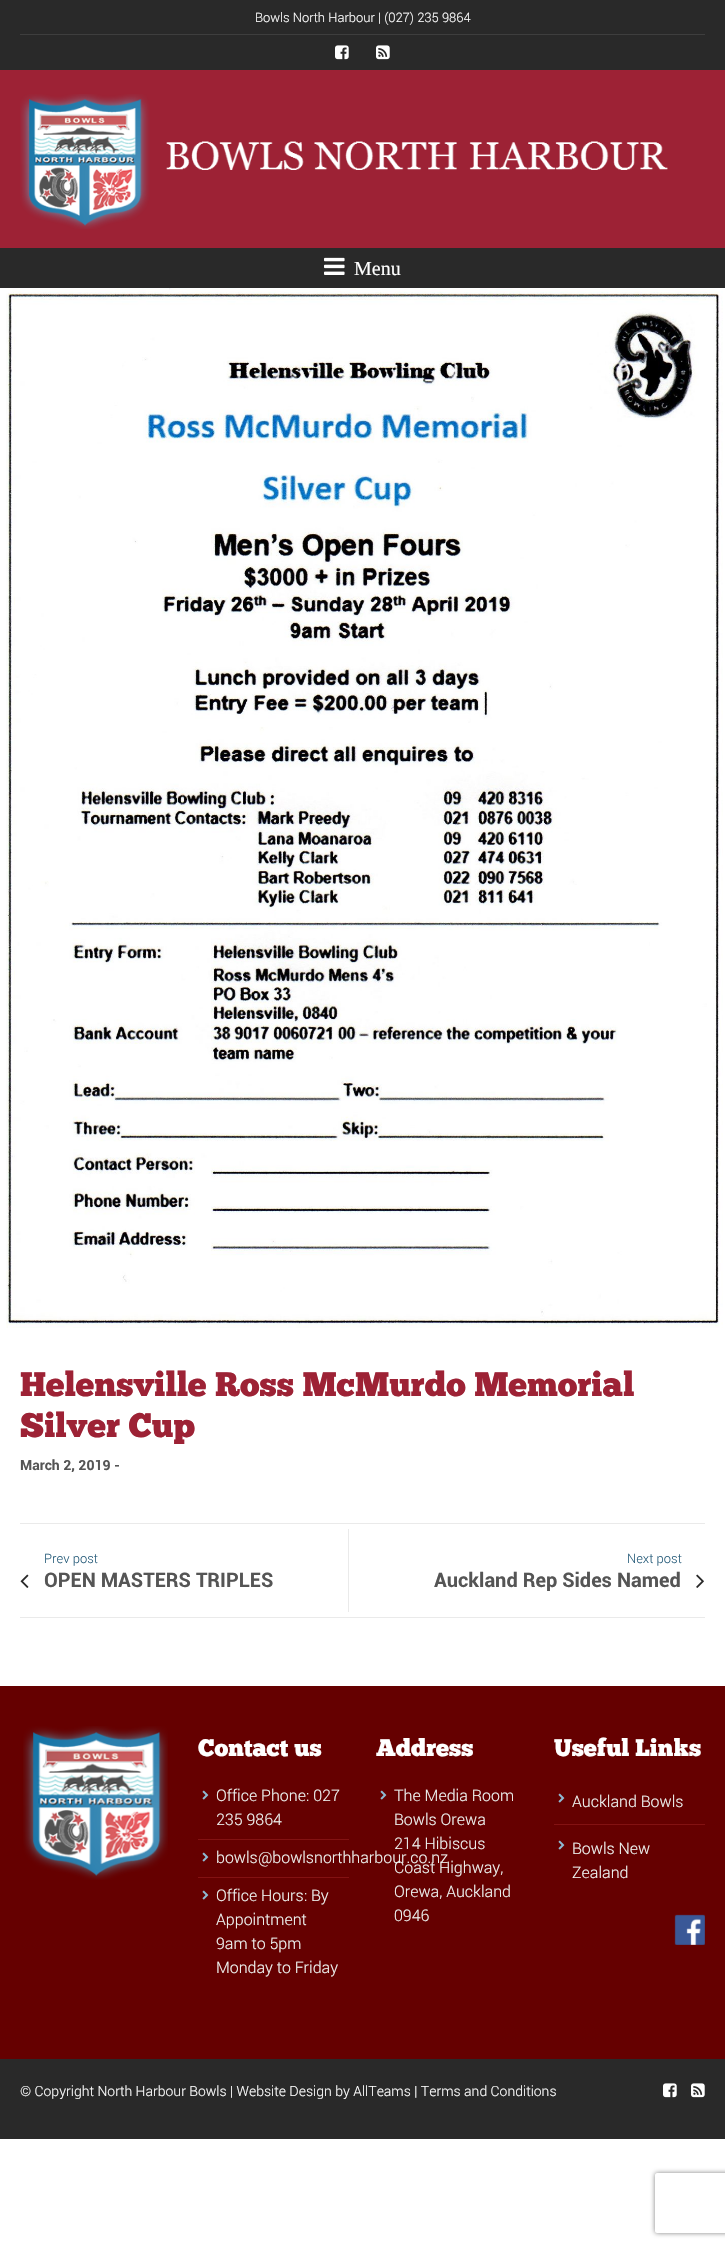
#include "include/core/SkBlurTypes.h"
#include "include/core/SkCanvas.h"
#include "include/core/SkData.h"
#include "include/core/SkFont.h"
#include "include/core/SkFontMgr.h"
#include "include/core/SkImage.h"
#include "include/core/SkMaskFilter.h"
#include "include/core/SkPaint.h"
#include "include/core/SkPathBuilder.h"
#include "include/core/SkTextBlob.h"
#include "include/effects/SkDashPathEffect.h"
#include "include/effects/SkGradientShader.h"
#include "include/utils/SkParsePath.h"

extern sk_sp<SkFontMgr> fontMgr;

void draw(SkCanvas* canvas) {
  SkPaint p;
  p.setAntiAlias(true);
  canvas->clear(SK_ColorWHITE);
  p.setColor(SkColorSetRGB(41, 41, 41));
  canvas->drawRect(SkRect::MakeLTRB(0, 0, 725, 70), p);
  p.setColor(SkColorSetRGB(62, 62, 62));
  canvas->drawRect(SkRect::MakeLTRB(20, 34, 705, 35), p);
  canvas->drawImageRect(SkImages::DeferredFromEncodedData(SkData::MakeFromFileName("images/1.png")), SkRect::MakeLTRB(335, 45, 349, 60), SkSamplingOptions());
  canvas->drawImageRect(SkImages::DeferredFromEncodedData(SkData::MakeFromFileName("images/2.png")), SkRect::MakeLTRB(376, 45, 390, 60), SkSamplingOptions());
  p.setColor(SkColorSetRGB(157, 34, 53));
  canvas->drawRect(SkRect::MakeLTRB(0, 70, 725, 248), p);
  canvas->drawImageRect(SkImages::DeferredFromEncodedData(SkData::MakeFromFileName("images/3.png")), SkRect::MakeLTRB(20, 94, 668, 229), SkSamplingOptions());
  p.setColor(SkColorSetRGB(41, 41, 41));
  canvas->drawRect(SkRect::MakeLTRB(0, 248, 725, 288), p);
  canvas->drawImageRect(SkImages::DeferredFromEncodedData(SkData::MakeFromFileName("images/4.png")), SkRect::MakeLTRB(324, 257, 345, 275), SkSamplingOptions());
  canvas->drawImageRect(SkImages::DeferredFromEncodedData(SkData::MakeFromFileName("images/5.png")), SkRect::MakeLTRB(6, 288, 723, 1328), SkSamplingOptions());
  p.setColor(SkColorSetRGB(234, 234, 234));
  canvas->drawRect(SkRect::MakeLTRB(20, 1523, 705, 1524), p);
  canvas->drawRect(SkRect::MakeLTRB(20, 1617, 705, 1618), p);
  canvas->drawRect(SkRect::MakeLTRB(348, 1529, 349, 1612), p);
  canvas->drawImageRect(SkImages::DeferredFromEncodedData(SkData::MakeFromFileName("images/6.png")), SkRect::MakeLTRB(20, 1574, 29, 1588), SkSamplingOptions());
  canvas->drawImageRect(SkImages::DeferredFromEncodedData(SkData::MakeFromFileName("images/7.png")), SkRect::MakeLTRB(696, 1574, 704, 1588), SkSamplingOptions());
  p.setColor(SkColorSetRGB(101, 0, 0));
  canvas->drawRect(SkRect::MakeLTRB(0, 1686, 725, 2059), p);
  canvas->drawImageRect(SkImages::DeferredFromEncodedData(SkData::MakeFromFileName("images/8.png")), SkRect::MakeLTRB(23, 1726, 168, 1880), SkSamplingOptions());
  p.setColor(SkColorSetRGB(131, 18, 18));
  canvas->drawRect(SkRect::MakeLTRB(198, 1839, 349, 1840), p);
  canvas->drawImageRect(SkImages::DeferredFromEncodedData(SkData::MakeFromFileName("images/9.png")), SkRect::MakeLTRB(202, 1790, 209, 1800), SkSamplingOptions());
  canvas->drawRect(SkRect::MakeLTRB(198, 1877, 349, 1878), p);
  canvas->drawImageRect(SkImages::DeferredFromEncodedData(SkData::MakeFromFileName("images/9.png")), SkRect::MakeLTRB(202, 1852, 209, 1862), SkSamplingOptions());
  canvas->drawImageRect(SkImages::DeferredFromEncodedData(SkData::MakeFromFileName("images/9.png")), SkRect::MakeLTRB(202, 1890, 209, 1900), SkSamplingOptions());
  canvas->drawRect(SkRect::MakeLTRB(554, 1824, 705, 1825), p);
  canvas->drawImageRect(SkImages::DeferredFromEncodedData(SkData::MakeFromFileName("images/9.png")), SkRect::MakeLTRB(558, 1793, 565, 1803), SkSamplingOptions());
  canvas->drawImageRect(SkImages::DeferredFromEncodedData(SkData::MakeFromFileName("images/9.png")), SkRect::MakeLTRB(558, 1840, 565, 1850), SkSamplingOptions());
  canvas->drawImageRect(SkImages::DeferredFromEncodedData(SkData::MakeFromFileName("images/10.png")), SkRect::MakeLTRB(674, 1914, 705, 1945), SkSamplingOptions());
  canvas->drawImageRect(SkImages::DeferredFromEncodedData(SkData::MakeFromFileName("images/9.png")), SkRect::MakeLTRB(380, 1790, 387, 1800), SkSamplingOptions());
  p.setColor(SkColorSetRGB(41, 41, 41));
  canvas->drawRect(SkRect::MakeLTRB(0, 2059, 725, 2139), p);
  canvas->drawImageRect(SkImages::DeferredFromEncodedData(SkData::MakeFromFileName("images/1.png")), SkRect::MakeLTRB(663, 2083, 677, 2098), SkSamplingOptions());
  canvas->drawImageRect(SkImages::DeferredFromEncodedData(SkData::MakeFromFileName("images/2.png")), SkRect::MakeLTRB(691, 2083, 705, 2098), SkSamplingOptions());
  canvas->save();
  canvas->clipPath(SkPathBuilder(SkPathFillType::kEvenOdd).moveTo(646, 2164).lineTo(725, 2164).lineTo(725, 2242).lineTo(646, 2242).close().moveTo(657, 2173).lineTo(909, 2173).cubicTo(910, 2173, 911, 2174, 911, 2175).lineTo(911, 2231).cubicTo(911, 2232, 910, 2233, 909, 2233).lineTo(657, 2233).cubicTo(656, 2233, 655, 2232, 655, 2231).lineTo(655, 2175).cubicTo(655, 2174, 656, 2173, 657, 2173).close().detach(), true);
  p.setColor(SkColorSetRGB(128, 128, 128));
  p.setMaskFilter(SkMaskFilter::MakeBlur(kNormal_SkBlurStyle, 2.5f));
  canvas->drawRoundRect(SkRect::MakeLTRB(655, 2173, 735, 2233), 2, 2, p);
  p.setMaskFilter(nullptr);
  canvas->restore();
  SkFont font1(fontMgr->matchFamilyStyle("Roboto", SkFontStyle(300, SkFontStyle::kNormal_Width, SkFontStyle::kUpright_Slant)), 13);
  font1.setSubpixel(true);
  p.setColor(SK_ColorWHITE);
  canvas->drawString("Bowls North Harbour | (027) 235 9864", 255, 22, font1, p);
  SkFont font2(fontMgr->matchFamilyStyle("Liberation Serif", SkFontStyle::Normal()), 20);
  font2.setSubpixel(true);
  canvas->drawString("Menu", 354, 275, font2, p);
  SkFont font3(fontMgr->matchFamilyStyle("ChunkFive", SkFontStyle::Normal()), 34);
  font3.setSubpixel(true);
  p.setColor(SkColorSetRGB(157, 34, 53));
  canvas->drawString("Helensville Ross McMurdo Memorial", 20, 1396, font3, p);
  canvas->drawString("Silver Cup", 20, 1437, font3, p);
  SkFont font4(fontMgr->matchFamilyStyle("Roboto", SkFontStyle::Bold()), 14);
  font4.setSubpixel(true);
  p.setColor(SkColorSetRGB(85, 85, 85));
  canvas->drawString("March 2, 2019 -", 20, 1470, font4, p);
  p.setColor(SkColorSetRGB(39, 92, 122));
  canvas->drawString("Prev post", 44, 1563, font1, p);
  SkFont font5(fontMgr->matchFamilyStyle("Roboto", SkFontStyle::Bold()), 20);
  font5.setSubpixel(true);
  p.setColor(SkColorSetRGB(85, 85, 85));
  canvas->drawString("OPEN MASTERS TRIPLES", 44, 1587, font5, p);
  p.setColor(SkColorSetRGB(39, 92, 122));
  canvas->drawString("Next post", 627, 1563, font1, p);
  p.setColor(SkColorSetRGB(85, 85, 85));
  canvas->drawString("Auckland Rep Sides Named", 434, 1587, font5, p);
  SkFont font6(fontMgr->matchFamilyStyle("ChunkFive", SkFontStyle::Normal()), 24);
  font6.setSubpixel(true);
  p.setColor(SK_ColorWHITE);
  canvas->drawString("Contact us", 198, 1756, font6, p);
  SkFont font7(fontMgr->matchFamilyStyle("Roboto", SkFontStyle(300, SkFontStyle::kNormal_Width, SkFontStyle::kUpright_Slant)), 16);
  font7.setSubpixel(true);
  p.setColor(SkColorSetRGB(240, 246, 243));
  canvas->drawString("Office Phone: 027", 216, 1801, font7, p);
  canvas->drawString("235 9864", 216, 1825, font7, p);
  canvas->drawString("bowls@bowlsnorthharbour.co.nz", 216, 1863, font7, p);
  canvas->drawString("Office Hours: By", 216, 1901, font7, p);
  canvas->drawString("Appointment", 216, 1925, font7, p);
  canvas->drawString("9am to 5pm", 216, 1949, font7, p);
  canvas->drawString("Monday to Friday", 216, 1973, font7, p);
  p.setColor(SK_ColorWHITE);
  canvas->drawString("Useful Links", 554, 1756, font6, p);
  p.setColor(SkColorSetRGB(240, 246, 243));
  canvas->drawString("Auckland Bowls", 572, 1807, font7, p);
  canvas->drawString("Bowls New", 572, 1854, font7, p);
  canvas->drawString("Zealand", 572, 1878, font7, p);
  p.setColor(SK_ColorWHITE);
  canvas->drawString("Address", 376, 1756, font6, p);
  p.setColor(SkColorSetRGB(240, 246, 243));
  canvas->drawString("The Media Room", 394, 1801, font7, p);
  canvas->drawString("Bowls Orewa", 394, 1825, font7, p);
  canvas->drawString("214 Hibiscus", 394, 1849, font7, p);
  canvas->drawString("Coast Highway,", 394, 1873, font7, p);
  canvas->drawString("Orewa, Auckland", 394, 1897, font7, p);
  canvas->drawString("0946", 394, 1921, font7, p);
  SkFont font8(fontMgr->matchFamilyStyle("Roboto", SkFontStyle(300, SkFontStyle::kNormal_Width, SkFontStyle::kUpright_Slant)), 14);
  font8.setSubpixel(true);
  p.setColor(SK_ColorWHITE);
  canvas->drawString("© Copyright North Harbour Bowls | Website Design by AllTeams | Terms and Conditions", 20, 2096, font8, p);
}
